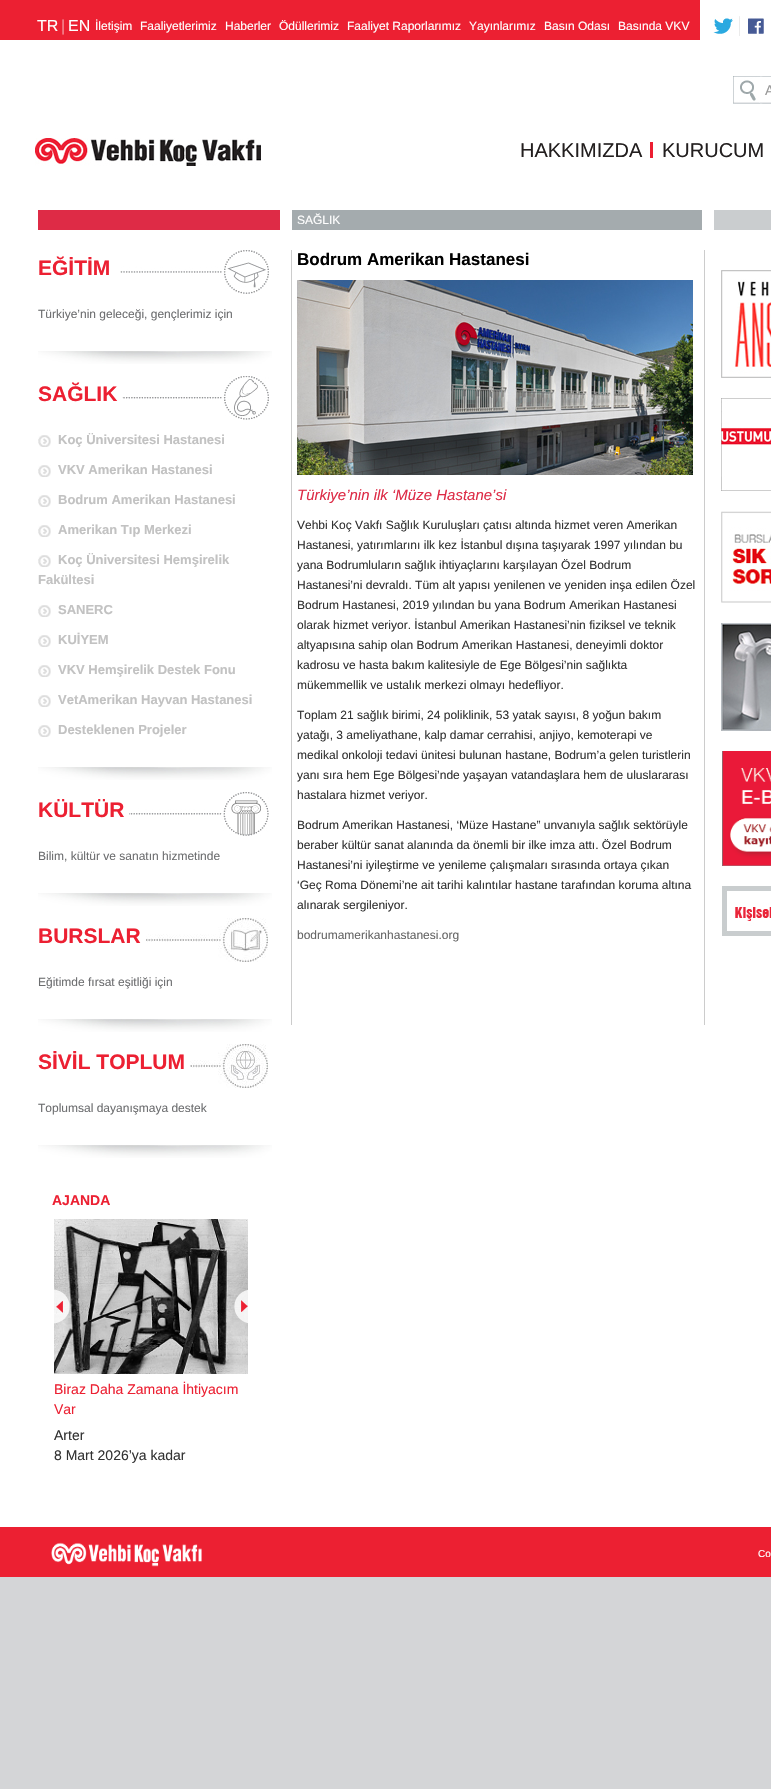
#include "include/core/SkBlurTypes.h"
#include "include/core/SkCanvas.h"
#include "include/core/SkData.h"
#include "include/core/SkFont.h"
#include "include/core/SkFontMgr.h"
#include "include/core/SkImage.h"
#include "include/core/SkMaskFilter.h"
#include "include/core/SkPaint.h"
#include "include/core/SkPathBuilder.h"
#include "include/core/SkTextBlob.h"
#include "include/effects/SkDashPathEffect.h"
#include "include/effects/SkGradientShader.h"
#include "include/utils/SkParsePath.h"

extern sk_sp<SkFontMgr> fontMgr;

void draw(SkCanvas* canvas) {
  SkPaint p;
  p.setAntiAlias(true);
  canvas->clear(SkColorSetRGB(212, 213, 215));
  p.setColor(SK_ColorWHITE);
  canvas->drawRect(SkRect::MakeLTRB(0, 0, 771, 1527), p);
  p.setColor(SkColorSetRGB(236, 32, 50));
  canvas->drawRect(SkRect::MakeLTRB(0, 0, 700, 40), p);
  canvas->drawImageRect(SkImages::DeferredFromEncodedData(SkData::MakeFromFileName("images/1.png")), SkRect::MakeLTRB(713, 16, 764, 36), SkSamplingOptions());
  canvas->drawImageRect(SkImages::DeferredFromEncodedData(SkData::MakeFromFileName("images/2.png")), SkRect::MakeLTRB(733, 76, 763, 104), SkSamplingOptions());
  p.setColor(SK_ColorWHITE);
  canvas->drawRoundRect(SkRect::MakeLTRB(759, 76, 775, 104), 4, 4, p);
  canvas->drawImageRect(SkImages::DeferredFromEncodedData(SkData::MakeFromFileName("images/3.png")), SkRect::MakeLTRB(760, 76, 771, 104), SkSamplingOptions());
  canvas->drawImageRect(SkImages::DeferredFromEncodedData(SkData::MakeFromFileName("images/4.png")), SkRect::MakeLTRB(35, 138, 261, 166), SkSamplingOptions());
  p.setColor(SkColorSetRGB(236, 30, 50));
  canvas->drawRect(SkRect::MakeLTRB(650, 142, 653, 158), p);
  p.setColor(SkColorSetRGB(222, 43, 70));
  canvas->drawRect(SkRect::MakeLTRB(38, 210, 280, 230), p);
  canvas->drawImageRect(SkImages::DeferredFromEncodedData(SkData::MakeFromFileName("images/5.png")), SkRect::MakeLTRB(120, 250, 269, 294), SkSamplingOptions());
  canvas->drawImageRect(SkImages::DeferredFromEncodedData(SkData::MakeFromFileName("images/6.png")), SkRect::MakeLTRB(38, 351, 272, 364), SkSamplingOptions());
  canvas->drawImageRect(SkImages::DeferredFromEncodedData(SkData::MakeFromFileName("images/7.png")), SkRect::MakeLTRB(120, 376, 269, 420), SkSamplingOptions());
  p.setColor(SK_ColorWHITE);
  canvas->drawRect(SkRect::MakeLTRB(120, 397, 122, 399), p);
  canvas->drawImageRect(SkImages::DeferredFromEncodedData(SkData::MakeFromFileName("images/8.png")), SkRect::MakeLTRB(38, 435, 51, 447), SkSamplingOptions());
  canvas->drawImageRect(SkImages::DeferredFromEncodedData(SkData::MakeFromFileName("images/8.png")), SkRect::MakeLTRB(38, 465, 51, 477), SkSamplingOptions());
  canvas->drawImageRect(SkImages::DeferredFromEncodedData(SkData::MakeFromFileName("images/8.png")), SkRect::MakeLTRB(38, 495, 51, 507), SkSamplingOptions());
  canvas->drawImageRect(SkImages::DeferredFromEncodedData(SkData::MakeFromFileName("images/8.png")), SkRect::MakeLTRB(38, 525, 51, 537), SkSamplingOptions());
  canvas->drawImageRect(SkImages::DeferredFromEncodedData(SkData::MakeFromFileName("images/8.png")), SkRect::MakeLTRB(38, 555, 51, 567), SkSamplingOptions());
  canvas->drawImageRect(SkImages::DeferredFromEncodedData(SkData::MakeFromFileName("images/8.png")), SkRect::MakeLTRB(38, 605, 51, 617), SkSamplingOptions());
  canvas->drawImageRect(SkImages::DeferredFromEncodedData(SkData::MakeFromFileName("images/8.png")), SkRect::MakeLTRB(38, 635, 51, 647), SkSamplingOptions());
  canvas->drawImageRect(SkImages::DeferredFromEncodedData(SkData::MakeFromFileName("images/8.png")), SkRect::MakeLTRB(38, 665, 51, 677), SkSamplingOptions());
  canvas->drawImageRect(SkImages::DeferredFromEncodedData(SkData::MakeFromFileName("images/8.png")), SkRect::MakeLTRB(38, 695, 51, 707), SkSamplingOptions());
  canvas->drawImageRect(SkImages::DeferredFromEncodedData(SkData::MakeFromFileName("images/8.png")), SkRect::MakeLTRB(38, 725, 51, 737), SkSamplingOptions());
  canvas->drawImageRect(SkImages::DeferredFromEncodedData(SkData::MakeFromFileName("images/6.png")), SkRect::MakeLTRB(38, 767, 272, 780), SkSamplingOptions());
  canvas->drawImageRect(SkImages::DeferredFromEncodedData(SkData::MakeFromFileName("images/9.png")), SkRect::MakeLTRB(120, 792, 269, 836), SkSamplingOptions());
  canvas->drawRect(SkRect::MakeLTRB(120, 813, 129, 815), p);
  canvas->drawImageRect(SkImages::DeferredFromEncodedData(SkData::MakeFromFileName("images/6.png")), SkRect::MakeLTRB(38, 893, 272, 906), SkSamplingOptions());
  canvas->drawImageRect(SkImages::DeferredFromEncodedData(SkData::MakeFromFileName("images/10.png")), SkRect::MakeLTRB(130, 918, 268, 962), SkSamplingOptions());
  canvas->drawRect(SkRect::MakeLTRB(130, 934, 146, 942), p);
  canvas->drawImageRect(SkImages::DeferredFromEncodedData(SkData::MakeFromFileName("images/6.png")), SkRect::MakeLTRB(38, 1019, 272, 1032), SkSamplingOptions());
  canvas->drawImageRect(SkImages::DeferredFromEncodedData(SkData::MakeFromFileName("images/11.png")), SkRect::MakeLTRB(130, 1044, 268, 1088), SkSamplingOptions());
  canvas->drawRect(SkRect::MakeLTRB(130, 1060, 190, 1068), p);
  canvas->drawImageRect(SkImages::DeferredFromEncodedData(SkData::MakeFromFileName("images/6.png")), SkRect::MakeLTRB(38, 1145, 272, 1158), SkSamplingOptions());
  canvas->drawImageRect(SkImages::DeferredFromEncodedData(SkData::MakeFromFileName("images/14.png")), SkRect::MakeLTRB(54, 1219, 248, 1374), SkSamplingOptions());
  canvas->drawImageRect(SkImages::DeferredFromEncodedData(SkData::MakeFromFileName("images/12.png")), SkRect::MakeLTRB(54, 1289, 70, 1324), SkSamplingOptions());
  canvas->drawImageRect(SkImages::DeferredFromEncodedData(SkData::MakeFromFileName("images/13.png")), SkRect::MakeLTRB(234, 1290, 248, 1323), SkSamplingOptions());
  p.setColor(SkColorSetRGB(164, 171, 174));
  canvas->drawRect(SkRect::MakeLTRB(292, 210, 702, 230), p);
  p.setColor(SkColorSetRGB(204, 204, 204));
  canvas->drawRect(SkRect::MakeLTRB(704, 250, 705, 1025), p);
  canvas->drawRect(SkRect::MakeLTRB(291, 250, 292, 1025), p);
  canvas->drawImageRect(SkImages::DeferredFromEncodedData(SkData::MakeFromFileName("images/15.png")), SkRect::MakeLTRB(297, 280, 693, 475), SkSamplingOptions());
  p.setColor(SkColorSetRGB(202, 205, 207));
  canvas->drawRect(SkRect::MakeLTRB(714, 210, 771, 230), p);
  canvas->drawImageRect(SkImages::DeferredFromEncodedData(SkData::MakeFromFileName("images/16.png")), SkRect::MakeLTRB(721, 270, 771, 378), SkSamplingOptions());
  canvas->drawImageRect(SkImages::DeferredFromEncodedData(SkData::MakeFromFileName("images/17.png")), SkRect::MakeLTRB(721, 398, 771, 491), SkSamplingOptions());
  canvas->drawImageRect(SkImages::DeferredFromEncodedData(SkData::MakeFromFileName("images/18.png")), SkRect::MakeLTRB(721, 511, 771, 603), SkSamplingOptions());
  canvas->drawImageRect(SkImages::DeferredFromEncodedData(SkData::MakeFromFileName("images/19.png")), SkRect::MakeLTRB(721, 623, 771, 731), SkSamplingOptions());
  canvas->drawImageRect(SkImages::DeferredFromEncodedData(SkData::MakeFromFileName("images/20.png")), SkRect::MakeLTRB(722, 751, 771, 866), SkSamplingOptions());
  canvas->drawImageRect(SkImages::DeferredFromEncodedData(SkData::MakeFromFileName("images/21.png")), SkRect::MakeLTRB(722, 886, 771, 936), SkSamplingOptions());
  p.setColor(SkColorSetRGB(236, 32, 50));
  canvas->drawRect(SkRect::MakeLTRB(0, 1527, 771, 1577), p);
  canvas->drawImageRect(SkImages::DeferredFromEncodedData(SkData::MakeFromFileName("images/22.png")), SkRect::MakeLTRB(51, 1542, 202, 1567), SkSamplingOptions());
  SkFont font1(fontMgr->matchFamilyStyle("Liberation Sans", SkFontStyle::Normal()), 16);
  font1.setSubpixel(true);
  p.setColor(SK_ColorWHITE);
  canvas->drawString("TR", 37, 31, font1, p);
  p.setColor(SkColorSetRGB(245, 143, 152));
  canvas->drawString("|", 61, 31, font1, p);
  p.setColor(SK_ColorWHITE);
  canvas->drawString("EN", 68, 31, font1, p);
  SkFont font2(fontMgr->matchFamilyStyle("Liberation Sans", SkFontStyle::Normal()), 12);
  font2.setSubpixel(true);
  canvas->drawString("İletişim", 95, 30, font2, p);
  canvas->drawString("Faaliyetlerimiz", 140, 30, font2, p);
  canvas->drawString("Haberler", 225, 30, font2, p);
  canvas->drawString("Ödüllerimiz", 279, 30, font2, p);
  canvas->drawString("Faaliyet Raporlarımız", 347, 30, font2, p);
  canvas->drawString("Yayınlarımız", 469, 30, font2, p);
  canvas->drawString("Basın Odası", 544, 30, font2, p);
  canvas->drawString("Basında VKV", 618, 30, font2, p);
  SkFont font3(fontMgr->matchFamilyStyle("Liberation Sans", SkFontStyle::Normal()), 14);
  font3.setSubpixel(true);
  p.setColor(SkColorSetRGB(153, 153, 153));
  canvas->drawString("A", 765, 95, font3, p);
  SkFont font4(fontMgr->matchFamilyStyle("Liberation Sans", SkFontStyle::Normal()), 20);
  font4.setSubpixel(true);
  p.setColor(SkColorSetRGB(35, 31, 31));
  canvas->drawString("HAKKIMIZDA", 520, 157, font4, p);
  canvas->drawString("KURUCUM", 662, 157, font4, p);
  SkFont font5(fontMgr->matchFamilyStyle("Liberation Sans", SkFontStyle::Bold()), 21);
  font5.setSubpixel(true);
  p.setColor(SkColorSetRGB(236, 32, 50));
  canvas->drawString("EĞİTİM", 38, 275, font5, p);
  p.setColor(SkColorSetRGB(109, 110, 112));
  canvas->drawString("Türkiye’nin geleceği, gençlerimiz için", 38, 318, font2, p);
  p.setColor(SkColorSetRGB(236, 32, 50));
  canvas->drawString("SAĞLIK", 38, 401, font5, p);
  SkFont font6(fontMgr->matchFamilyStyle("Liberation Sans", SkFontStyle::Bold()), 13);
  font6.setSubpixel(true);
  p.setColor(SkColorSetRGB(194, 194, 194));
  canvas->drawString("Koç Üniversitesi Hastanesi", 58, 444, font6, p);
  canvas->drawString("VKV Amerikan Hastanesi", 58, 474, font6, p);
  canvas->drawString("Bodrum Amerikan Hastanesi", 58, 504, font6, p);
  canvas->drawString("Amerikan Tıp Merkezi", 58, 534, font6, p);
  canvas->drawString("Koç Üniversitesi Hemşirelik", 58, 564, font6, p);
  canvas->drawString("Fakültesi", 38, 584, font6, p);
  canvas->drawString("SANERC", 58, 614, font6, p);
  canvas->drawString("KUİYEM", 58, 644, font6, p);
  canvas->drawString("VKV Hemşirelik Destek Fonu", 58, 674, font6, p);
  canvas->drawString("VetAmerikan Hayvan Hastanesi", 58, 704, font6, p);
  canvas->drawString("Desteklenen Projeler", 58, 734, font6, p);
  p.setColor(SkColorSetRGB(236, 32, 50));
  canvas->drawString("KÜLTÜR", 38, 817, font5, p);
  p.setColor(SkColorSetRGB(109, 110, 112));
  canvas->drawString("Bilim, kültür ve sanatın hizmetinde", 38, 860, font2, p);
  p.setColor(SkColorSetRGB(236, 32, 50));
  canvas->drawString("BURSLAR", 38, 943, font5, p);
  p.setColor(SkColorSetRGB(109, 110, 112));
  canvas->drawString("Eğitimde fırsat eşitliği için", 38, 986, font2, p);
  p.setColor(SkColorSetRGB(236, 32, 50));
  canvas->drawString("SİVİL TOPLUM", 38, 1069, font5, p);
  p.setColor(SkColorSetRGB(109, 110, 112));
  canvas->drawString("Toplumsal dayanışmaya destek", 38, 1112, font2, p);
  SkFont font7(fontMgr->matchFamilyStyle("Liberation Sans", SkFontStyle::Bold()), 14);
  font7.setSubpixel(true);
  p.setColor(SkColorSetRGB(236, 32, 50));
  canvas->drawString("AJANDA", 52, 1205, font7, p);
  canvas->drawString("Biraz Daha Zamana İhtiyacım", 54, 1394, font3, p);
  canvas->drawString("Var", 54, 1414, font3, p);
  p.setColor(SkColorSetRGB(51, 51, 51));
  canvas->drawString("Arter", 54, 1440, font3, p);
  canvas->drawString("8 Mart 2026’ya kadar", 54, 1460, font3, p);
  p.setColor(SK_ColorWHITE);
  canvas->drawString("SAĞLIK", 297, 224, font2, p);
  SkFont font8(fontMgr->matchFamilyStyle("Liberation Sans", SkFontStyle::Bold()), 17);
  font8.setSubpixel(true);
  p.setColor(SK_ColorBLACK);
  canvas->drawString("Bodrum Amerikan Hastanesi", 297, 265, font8, p);
  SkFont font9(fontMgr->matchFamilyStyle("Liberation Sans", SkFontStyle::Italic()), 15);
  font9.setSubpixel(true);
  p.setColor(SkColorSetRGB(221, 43, 70));
  canvas->drawString("Türkiye’nin ilk ‘Müze Hastane’si", 297, 500, font9, p);
  p.setColor(SkColorSetRGB(51, 51, 51));
  canvas->drawString("Vehbi Koç Vakfı Sağlık Kuruluşları çatısı altında hizmet veren Amerikan", 297, 529, font2, p);
  canvas->drawString("Hastanesi, yatırımlarını ilk kez İstanbul dışına taşıyarak 1997 yılından bu", 297, 549, font2, p);
  canvas->drawString("yana Bodrumluların sağlık ihtiyaçlarını karşılayan Özel Bodrum", 297, 569, font2, p);
  canvas->drawString("Hastanesi’ni devraldı. Tüm alt yapısı yenilenen ve yeniden inşa edilen Özel", 297, 589, font2, p);
  canvas->drawString("Bodrum Hastanesi, 2019 yılından bu yana Bodrum Amerikan Hastanesi", 297, 609, font2, p);
  canvas->drawString("olarak hizmet veriyor. İstanbul Amerikan Hastanesi’nin fiziksel ve teknik", 297, 629, font2, p);
  canvas->drawString("altyapısına sahip olan Bodrum Amerikan Hastanesi, deneyimli doktor", 297, 649, font2, p);
  canvas->drawString("kadrosu ve hasta bakım kalitesiyle de Ege Bölgesi’nin sağlıkta", 297, 669, font2, p);
  canvas->drawString("mükemmellik ve ustalık merkezi olmayı hedefliyor.", 297, 689, font2, p);
  canvas->drawString("Toplam 21 sağlık birimi, 24 poliklinik, 53 yatak sayısı, 8 yoğun bakım", 297, 719, font2, p);
  canvas->drawString("yatağı, 3 ameliyathane, kalp damar cerrahisi, anjiyo, kemoterapi ve", 297, 739, font2, p);
  canvas->drawString("medikal onkoloji tedavi ünitesi bulunan hastane, Bodrum’a gelen turistlerin", 297, 759, font2, p);
  canvas->drawString("yanı sıra hem Ege Bölgesi’nde yaşayan vatandaşlara hem de uluslararası", 297, 779, font2, p);
  canvas->drawString("hastalara hizmet veriyor.", 297, 799, font2, p);
  canvas->drawString("Bodrum Amerikan Hastanesi, ‘Müze Hastane” unvanıyla sağlık sektörüyle", 297, 829, font2, p);
  canvas->drawString("beraber kültür sanat alanında da önemli bir ilke imza attı. Özel Bodrum", 297, 849, font2, p);
  canvas->drawString("Hastanesi’ni iyileştirme ve yenileme çalışmaları sırasında ortaya çıkan", 297, 869, font2, p);
  canvas->drawString("‘Geç Roma Dönemi’ne ait tarihi kalıntılar hastane tarafından koruma altına", 297, 889, font2, p);
  canvas->drawString("alınarak sergileniyor.", 297, 909, font2, p);
  p.setColor(SkColorSetRGB(102, 102, 102));
  canvas->drawString("bodrumamerikanhastanesi.org", 297, 939, font2, p);
  SkFont font10(fontMgr->matchFamilyStyle("Liberation Sans", SkFontStyle::Normal()), 10);
  font10.setSubpixel(true);
  p.setColor(SK_ColorWHITE);
  canvas->drawString("Co", 758, 1557, font10, p);
}
